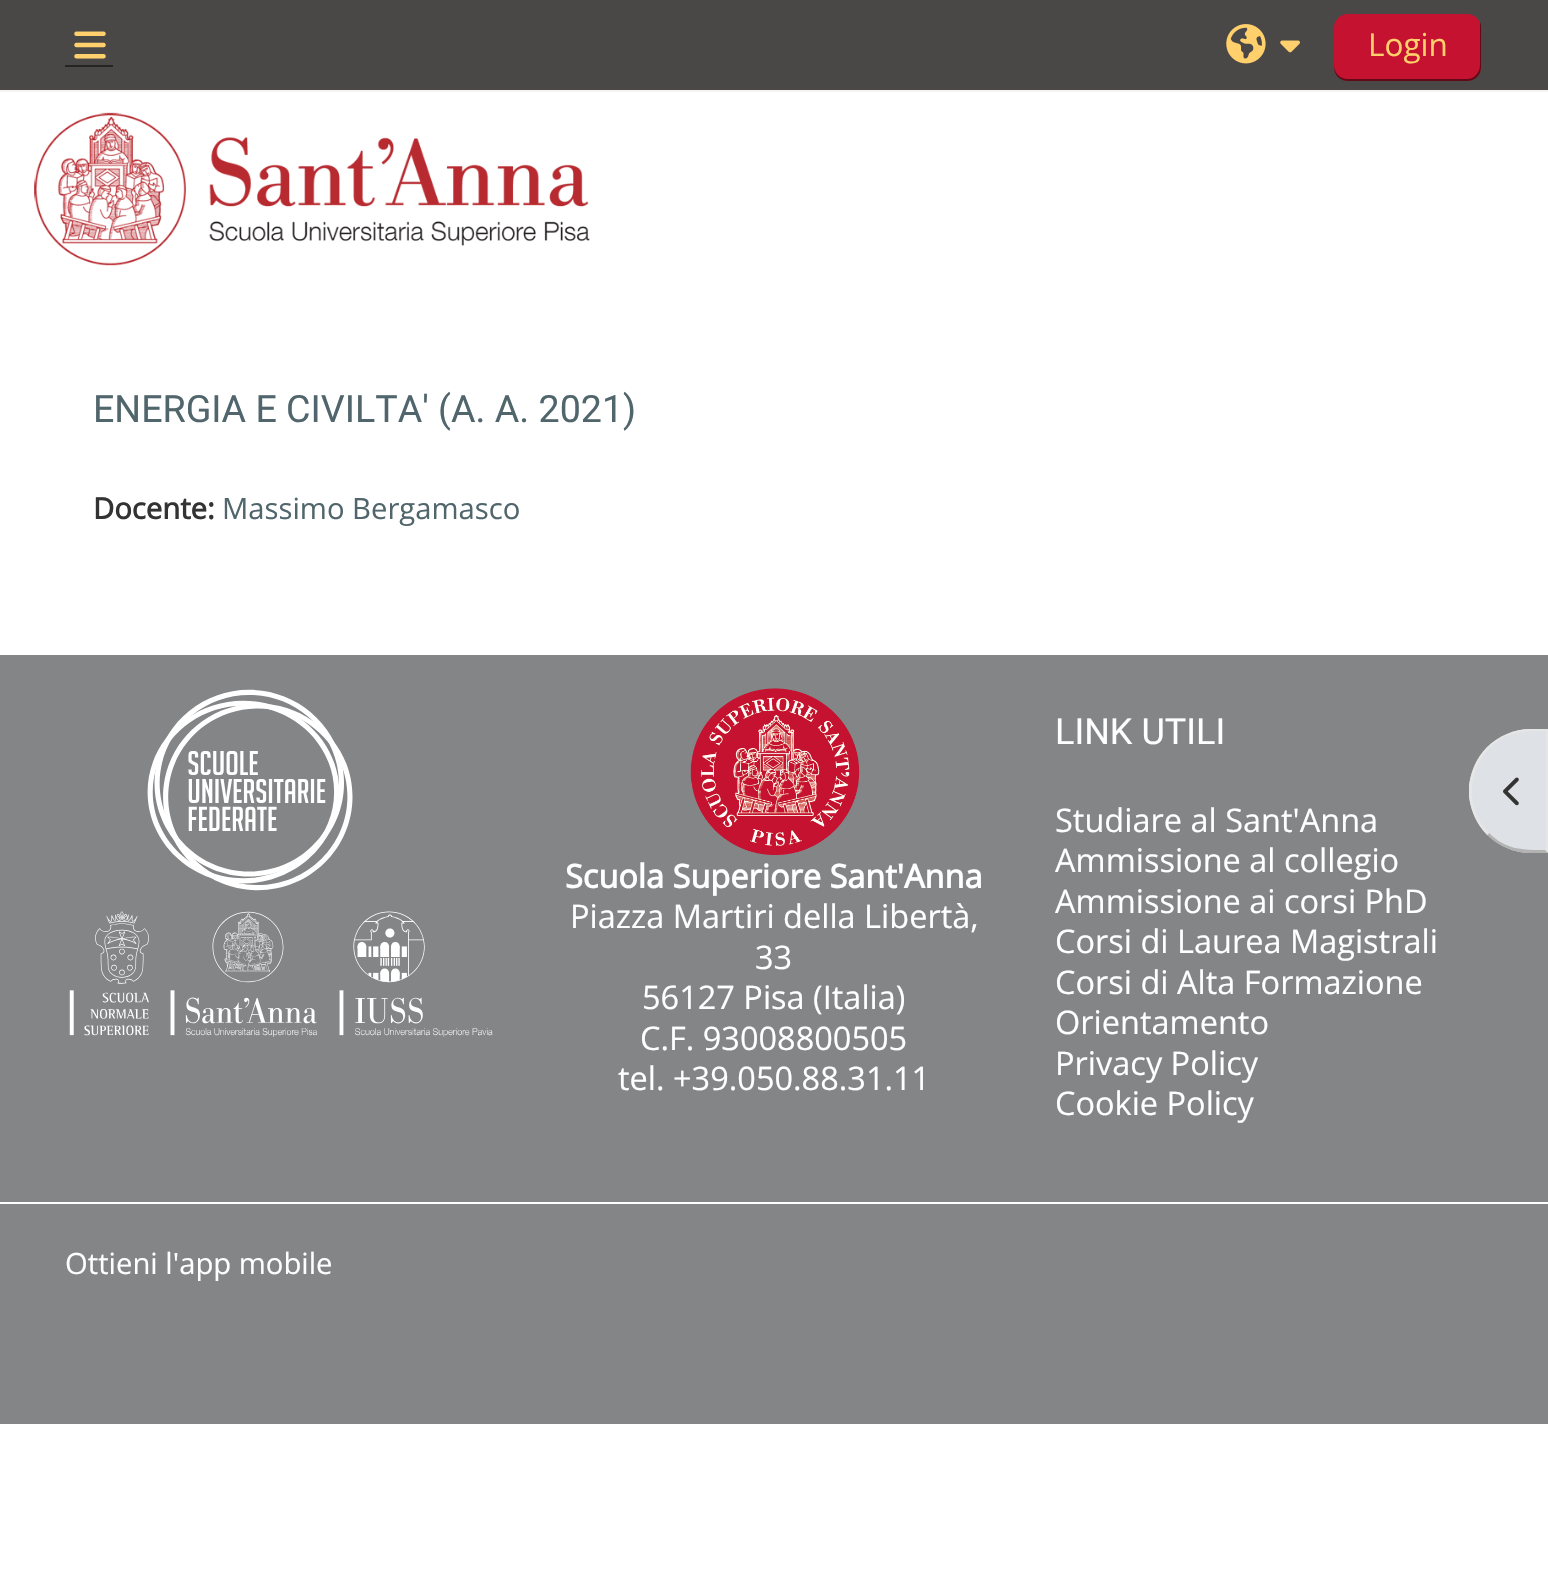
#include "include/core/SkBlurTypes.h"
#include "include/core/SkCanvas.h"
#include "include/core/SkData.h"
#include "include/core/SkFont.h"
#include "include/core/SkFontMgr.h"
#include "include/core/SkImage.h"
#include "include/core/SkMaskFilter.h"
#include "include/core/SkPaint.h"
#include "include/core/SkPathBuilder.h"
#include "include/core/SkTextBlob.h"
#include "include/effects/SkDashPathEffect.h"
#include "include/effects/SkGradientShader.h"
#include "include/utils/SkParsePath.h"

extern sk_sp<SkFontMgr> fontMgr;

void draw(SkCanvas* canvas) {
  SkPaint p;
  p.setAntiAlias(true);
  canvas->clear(SK_ColorWHITE);
  p.setColor(SkColorSetRGB(74, 72, 71));
  canvas->drawRect(SkRect::MakeLTRB(0, 0, 1548, 90), p);
  p.setColor(SkColorSetRGB(245, 244, 242));
  canvas->drawRect(SkRect::MakeLTRB(0, 90, 1548, 92), p);
  p.setColor(SkColorSetRGB(37, 36, 36));
  canvas->drawRect(SkRect::MakeLTRB(65, 65, 113, 67), p);
  canvas->drawImageRect(SkImages::DeferredFromEncodedData(SkData::MakeFromFileName("images/1.png")), SkRect::MakeLTRB(74, 31, 106, 59), SkSamplingOptions());
  canvas->drawImageRect(SkImages::DeferredFromEncodedData(SkData::MakeFromFileName("images/2.png")), SkRect::MakeLTRB(1226, 24, 1266, 64), SkSamplingOptions());
  canvas->drawImageRect(SkImages::DeferredFromEncodedData(SkData::MakeFromFileName("images/3.png")), SkRect::MakeLTRB(1280, 40, 1300, 53), SkSamplingOptions());
  p.setColor(SkColorSetRGB(196, 18, 48));
  canvas->drawRoundRect(SkRect::MakeLTRB(1334, 14, 1481, 81), 14, 14, p);
  p.setColor(SkColorSetARGB(128, 0, 0, 0));
  canvas->drawPath(SkPathBuilder().moveTo(1334, 65).lineTo(1334, 67).cubicTo(1334, 75, 1340, 81, 1348, 81).lineTo(1467, 81).cubicTo(1475, 81, 1481, 75, 1481, 67).lineTo(1481, 28).cubicTo(1481, 26, 1481, 24, 1480, 22).lineTo(1480, 65).cubicTo(1480, 73, 1474, 79, 1467, 79).lineTo(1348, 79).cubicTo(1340, 79, 1334, 73, 1334, 65).close().detach(), p);
  canvas->drawImageRect(SkImages::DeferredFromEncodedData(SkData::MakeFromFileName("images/4.png")), SkRect::MakeLTRB(34, 112, 590, 266), SkSamplingOptions());
  p.setColor(SkColorSetRGB(132, 133, 135));
  canvas->drawRect(SkRect::MakeLTRB(0, 655, 1548, 1424), p);
  canvas->drawImageRect(SkImages::DeferredFromEncodedData(SkData::MakeFromFileName("images/5.png")), SkRect::MakeLTRB(69, 689, 493, 1037), SkSamplingOptions());
  canvas->drawImageRect(SkImages::DeferredFromEncodedData(SkData::MakeFromFileName("images/6.png")), SkRect::MakeLTRB(690, 688, 860, 855), SkSamplingOptions());
  p.setColor(SK_ColorWHITE);
  canvas->drawRect(SkRect::MakeLTRB(0, 1202, 1548, 1204), p);
  p.setColor(SkColorSetRGB(222, 226, 230));
  canvas->drawPath(SkPathBuilder().moveTo(1531, 729).lineTo(1548, 729).lineTo(1548, 853).lineTo(1531, 853).cubicTo(1497, 853, 1469, 825, 1469, 791).cubicTo(1469, 757, 1497, 729, 1531, 729).close().detach(), p);
  p.setColor(SkColorSetRGB(230, 230, 230));
  canvas->drawPath(SkPathBuilder().moveTo(1531, 729).cubicTo(1514, 729, 1499, 736, 1487, 747).lineTo(1489, 749).cubicTo(1506, 731, 1523, 731, 1546, 731).lineTo(1548, 729).close().detach(), p);
  canvas->drawPath(SkPathBuilder().moveTo(1548, 729).lineTo(1546, 731).lineTo(1546, 850).lineTo(1545, 850).lineTo(1548, 853).close().detach(), p);
  p.setColor(SkColorSetRGB(179, 179, 179));
  canvas->drawPath(SkPathBuilder().moveTo(1548, 853).lineTo(1525, 853).cubicTo(1511, 851, 1497, 845, 1487, 835).lineTo(1489, 833).cubicTo(1506, 850, 1523, 850, 1545, 850).close().detach(), p);
  p.setColor(SkColorSetRGB(230, 230, 230));
  canvas->drawPath(SkPathBuilder().moveTo(1469, 785).cubicTo(1471, 771, 1477, 757, 1487, 747).lineTo(1489, 749).cubicTo(1467, 772, 1466, 810, 1489, 833).lineTo(1487, 835).cubicTo(1477, 825, 1471, 811, 1469, 797).close().detach(), p);
  canvas->drawImageRect(SkImages::DeferredFromEncodedData(SkData::MakeFromFileName("images/7.png")), SkRect::MakeLTRB(1503, 777, 1519, 806), SkSamplingOptions());
  SkFont font1(fontMgr->matchFamilyStyle("Open Sans", SkFontStyle::Normal()), 31.5f);
  font1.setSubpixel(true);
  p.setColor(SkColorSetRGB(255, 208, 107));
  canvas->drawString("Login", 1368, 56, font1, p);
  SkFont font2(fontMgr->matchFamilyStyle("Roboto", SkFontStyle::Normal()), 37.6f);
  font2.setSubpixel(true);
  p.setColor(SkColorSetRGB(81, 102, 108));
  canvas->drawString("ENERGIA E CIVILTA' (A. A. 2021)", 93, 422, font2, p);
  SkFont font3(fontMgr->matchFamilyStyle("Open Sans", SkFontStyle::Bold()), 29.25f);
  font3.setSubpixel(true);
  p.setColor(SkColorSetRGB(51, 51, 51));
  canvas->drawString("Docente:", 93, 519, font3, p);
  SkFont font4(fontMgr->matchFamilyStyle("Open Sans", SkFontStyle::Normal()), 29.25f);
  font4.setSubpixel(true);
  p.setColor(SkColorSetRGB(81, 102, 108));
  canvas->drawString("Massimo Bergamasco", 222, 519, font4, p);
  SkFont font5(fontMgr->matchFamilyStyle("Open Sans", SkFontStyle::Bold()), 32.5f);
  font5.setSubpixel(true);
  p.setColor(SK_ColorWHITE);
  canvas->drawString("Scuola Superiore Sant'Anna", 565, 888, font5, p);
  SkFont font6(fontMgr->matchFamilyStyle("Open Sans", SkFontStyle::Normal()), 32.5f);
  font6.setSubpixel(true);
  canvas->drawString("Piazza Martiri della Libertà,", 570, 928, font6, p);
  canvas->drawString("33", 755, 969, font6, p);
  canvas->drawString("56127 Pisa (Italia)", 642, 1009, font6, p);
  canvas->drawString("C.F. 93008800505", 640, 1050, font6, p);
  canvas->drawString("tel. +39.050.88.31.11", 618, 1090, font6, p);
  SkFont font7(fontMgr->matchFamilyStyle("Roboto", SkFontStyle::Normal()), 36);
  font7.setSubpixel(true);
  canvas->drawString("LINK UTILI", 1055, 744, font7, p);
  canvas->drawString("Studiare al Sant'Anna", 1055, 832, font6, p);
  canvas->drawString("Ammissione al collegio", 1055, 872, font6, p);
  canvas->drawString("Ammissione ai corsi PhD", 1055, 913, font6, p);
  canvas->drawString("Corsi di Laurea Magistrali", 1055, 953, font6, p);
  canvas->drawString("Corsi di Alta Formazione", 1055, 994, font6, p);
  canvas->drawString("Orientamento", 1055, 1034, font6, p);
  canvas->drawString("Privacy Policy", 1055, 1075, font6, p);
  canvas->drawString("Cookie Policy", 1055, 1115, font6, p);
  canvas->drawString("Ottieni l'app mobile", 65, 1274, font4, p);
}
